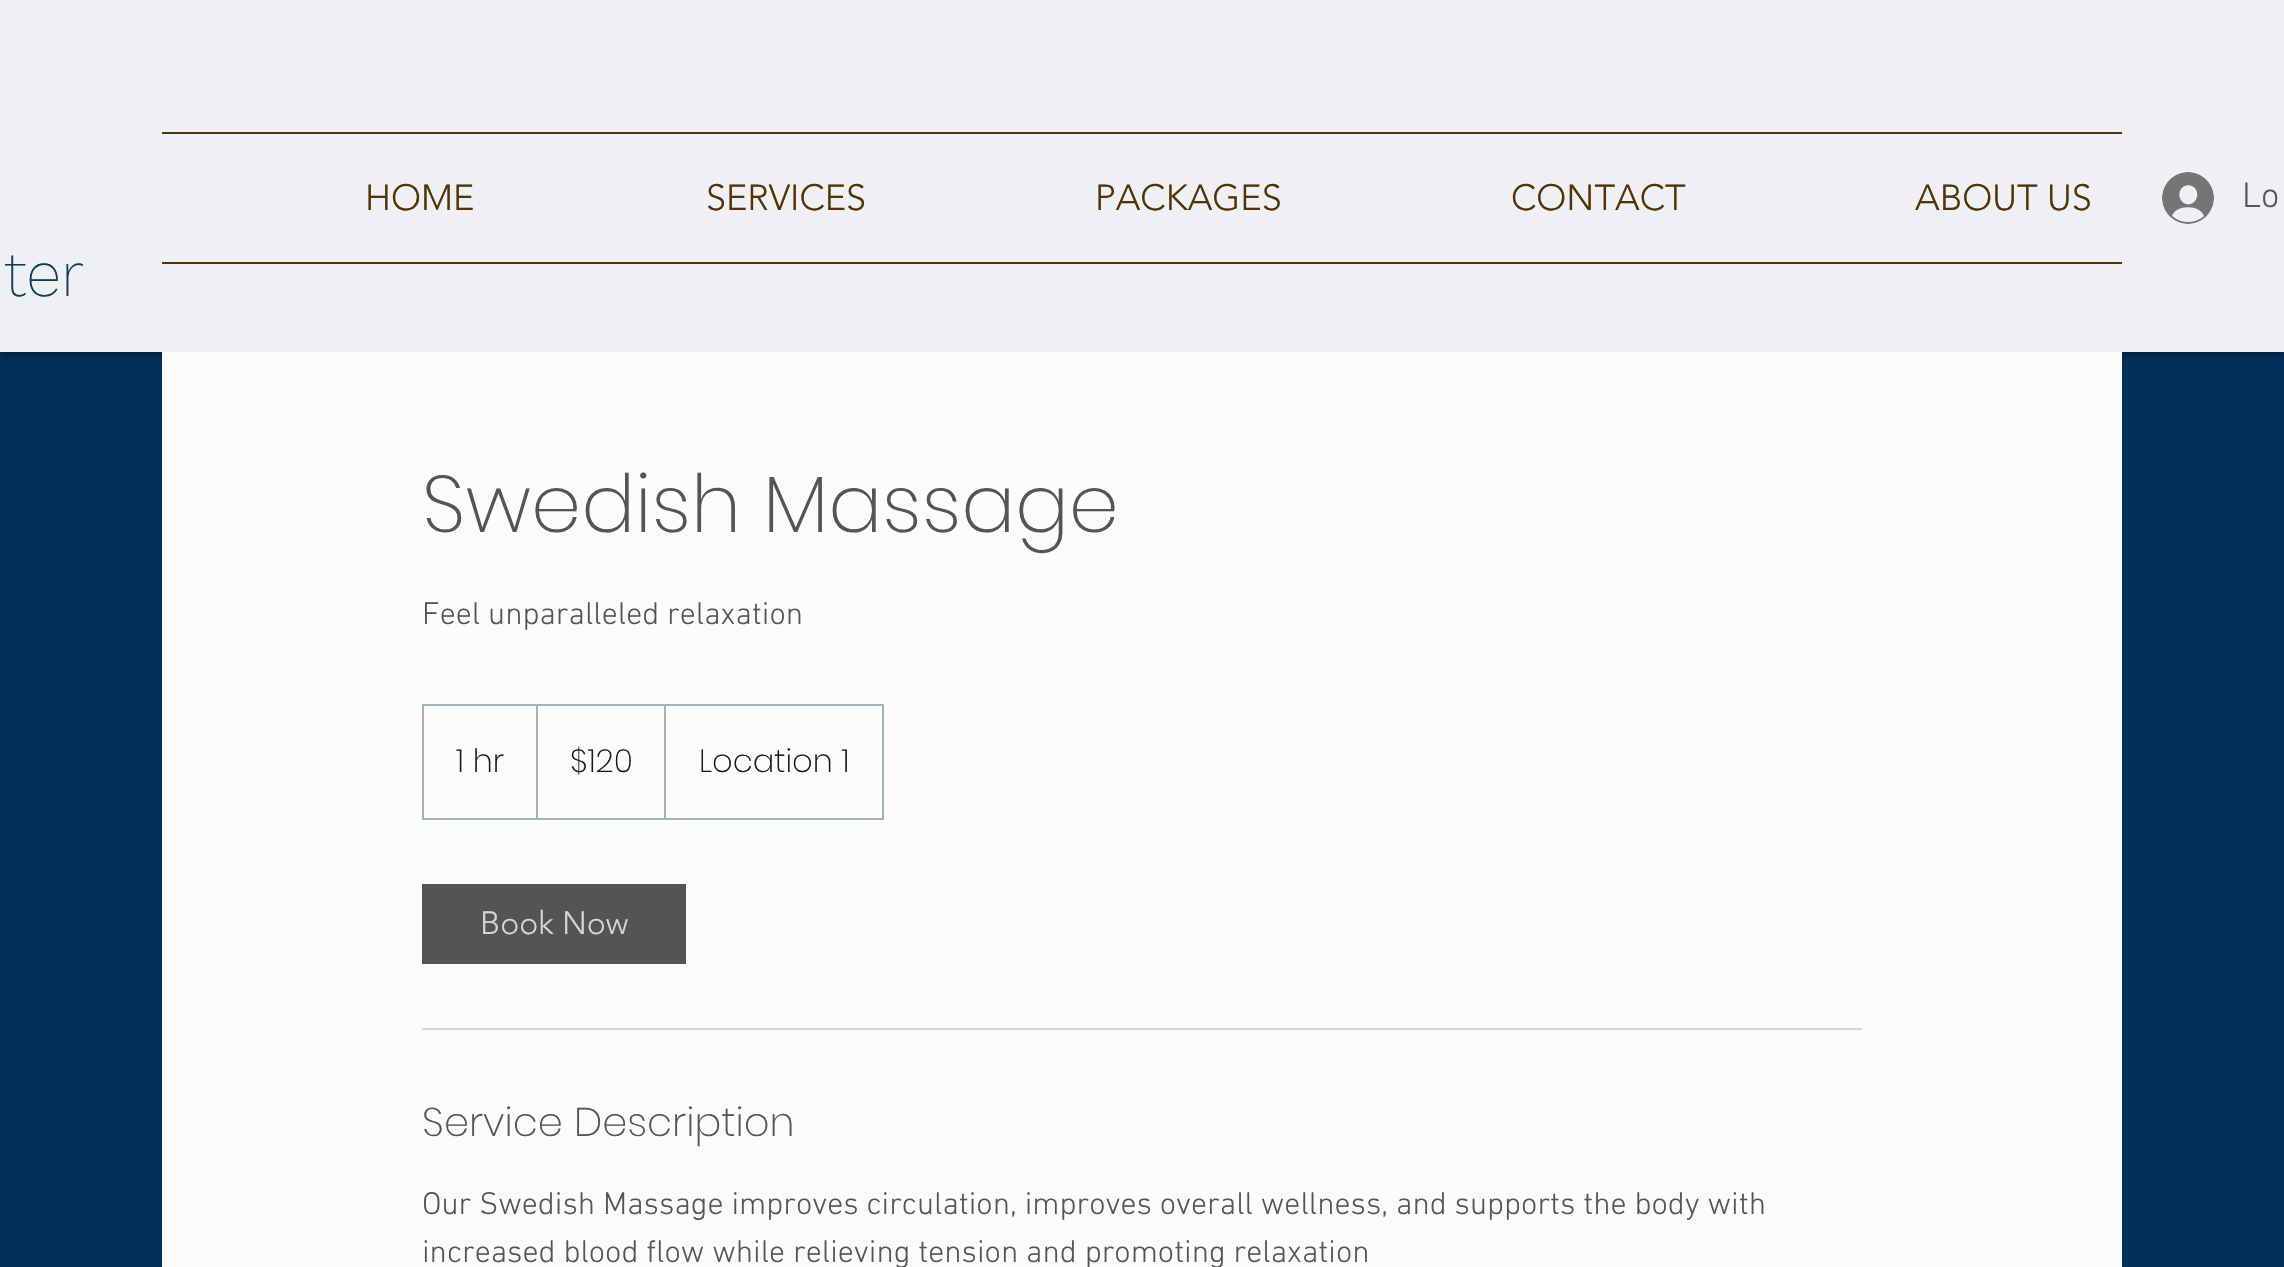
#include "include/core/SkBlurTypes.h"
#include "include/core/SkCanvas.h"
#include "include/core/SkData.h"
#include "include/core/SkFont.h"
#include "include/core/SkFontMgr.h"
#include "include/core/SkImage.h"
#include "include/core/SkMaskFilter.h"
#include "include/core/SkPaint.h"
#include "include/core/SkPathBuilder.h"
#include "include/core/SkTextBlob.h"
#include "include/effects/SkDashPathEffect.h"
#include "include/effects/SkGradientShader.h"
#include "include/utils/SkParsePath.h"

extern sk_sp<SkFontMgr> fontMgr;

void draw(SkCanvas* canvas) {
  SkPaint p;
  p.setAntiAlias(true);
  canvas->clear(SkColorSetRGB(5, 47, 91));
  p.setColor(SkColorSetARGB(179, 0, 0, 0));
  p.setMaskFilter(SkMaskFilter::MakeBlur(kNormal_SkBlurStyle, 5));
  canvas->drawRect(SkRect::MakeLTRB(0, 0, 2284, 352), p);
  p.setMaskFilter(nullptr);
  p.setColor(SkColorSetRGB(238, 240, 244));
  canvas->drawRect(SkRect::MakeLTRB(0, 0, 2284, 352), p);
  p.setColor(SkColorSetRGB(82, 51, 4));
  canvas->drawRect(SkRect::MakeLTRB(162, 132, 2122, 134), p);
  canvas->drawRect(SkRect::MakeLTRB(162, 262, 2122, 264), p);
  canvas->drawImageRect(SkImages::DeferredFromEncodedData(SkData::MakeFromFileName("images/1.png")), SkRect::MakeLTRB(2162, 172, 2214, 224), SkSamplingOptions());
  p.setColor(SkColorSetARGB(250, 255, 255, 255));
  canvas->drawRect(SkRect::MakeLTRB(162, 352, 2122, 1267), p);
  p.setStyle(SkPaint::kStroke_Style);
  p.setStrokeWidth(2);
  p.setColor(SkColorSetRGB(160, 178, 188));
  canvas->drawRect(SkRect::MakeLTRB(423, 705, 883, 819), p);
  canvas->save();
  canvas->clipRect(SkRect::MakeLTRB(424, 706, 882, 818));
  p.setStyle(SkPaint::kFill_Style);
  canvas->drawPath(SkPathBuilder().moveTo(536, 818).lineTo(536, 704).lineTo(538, 706).lineTo(538, 818).close().detach(), p);
  canvas->drawPath(SkPathBuilder().moveTo(664, 818).lineTo(664, 704).lineTo(666, 706).lineTo(666, 818).close().detach(), p);
  canvas->restore();
  p.setColor(SkColorSetRGB(84, 84, 84));
  canvas->drawRect(SkRect::MakeLTRB(422, 884, 686, 964), p);
  p.setColor(SkColorSetRGB(210, 214, 219));
  canvas->drawRect(SkRect::MakeLTRB(422, 1028, 1862, 1030), p);
  SkFont font1(fontMgr->matchFamilyStyle("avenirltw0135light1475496", SkFontStyle(300, SkFontStyle::kNormal_Width, SkFontStyle::kUpright_Slant)), 36);
  font1.setSubpixel(true);
  p.setColor(SkColorSetRGB(82, 51, 4));
  canvas->drawString("HOME", 365, 210, font1, p);
  canvas->drawString("SERVICES", 706, 210, font1, p);
  canvas->drawString("PACKAGES", 1095, 210, font1, p);
  canvas->drawString("CONTACT", 1511, 210, font1, p);
  canvas->drawString("ABOUT US", 1915, 210, font1, p);
  SkFont font2(fontMgr->matchFamilyStyle("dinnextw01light", SkFontStyle(300, SkFontStyle::kNormal_Width, SkFontStyle::kUpright_Slant)), 36);
  font2.setSubpixel(true);
  p.setColor(SkColorSetRGB(85, 85, 85));
  canvas->drawString("Lo", 2242, 207, font2, p);
  SkFont font3(fontMgr->matchFamilyStyle("Work Sans", SkFontStyle(200, SkFontStyle::kNormal_Width, SkFontStyle::kUpright_Slant)), 64);
  font3.setSubpixel(true);
  p.setColor(SkColorSetRGB(14, 60, 83));
  canvas->drawString("ter", 4, 296, font3, p);
  SkFont font4(fontMgr->matchFamilyStyle("Poppins", SkFontStyle(200, SkFontStyle::kNormal_Width, SkFontStyle::kUpright_Slant)), 80);
  font4.setSubpixel(true);
  p.setColor(SkColorSetRGB(85, 85, 85));
  canvas->drawString("Swedish Massage", 422, 532, font4, p);
  SkFont font5(fontMgr->matchFamilyStyle("dinnextw01light", SkFontStyle(300, SkFontStyle::kNormal_Width, SkFontStyle::kUpright_Slant)), 32);
  font5.setSubpixel(true);
  canvas->drawString("Feel unparalleled relaxation", 422, 624, font5, p);
  SkFont font6(fontMgr->matchFamilyStyle("Poppins", SkFontStyle(200, SkFontStyle::kNormal_Width, SkFontStyle::kUpright_Slant)), 32);
  font6.setSubpixel(true);
  p.setColor(SkColorSetRGB(24, 25, 25));
  canvas->drawString("1 hr", 456, 772, font6, p);
  canvas->drawString("$120", 570, 772, font6, p);
  canvas->drawString("Location 1", 699, 772, font6, p);
  SkFont font7(fontMgr->matchFamilyStyle("avenirltw0135light1475496", SkFontStyle(300, SkFontStyle::kNormal_Width, SkFontStyle::kUpright_Slant)), 32);
  font7.setSubpixel(true);
  p.setColor(SkColorSetRGB(213, 213, 213));
  canvas->drawString("Book Now", 480, 934, font7, p);
  SkFont font8(fontMgr->matchFamilyStyle("Poppins", SkFontStyle(200, SkFontStyle::kNormal_Width, SkFontStyle::kUpright_Slant)), 40);
  font8.setSubpixel(true);
  p.setColor(SkColorSetRGB(85, 85, 85));
  canvas->drawString("Service Description", 422, 1136, font8, p);
  canvas->drawString("Our Swedish Massage improves circulation, improves overall wellness, and supports the body with", 422, 1214, font5, p);
  canvas->drawString("increased blood flow while relieving tension and promoting relaxation", 422, 1262, font5, p);
}
